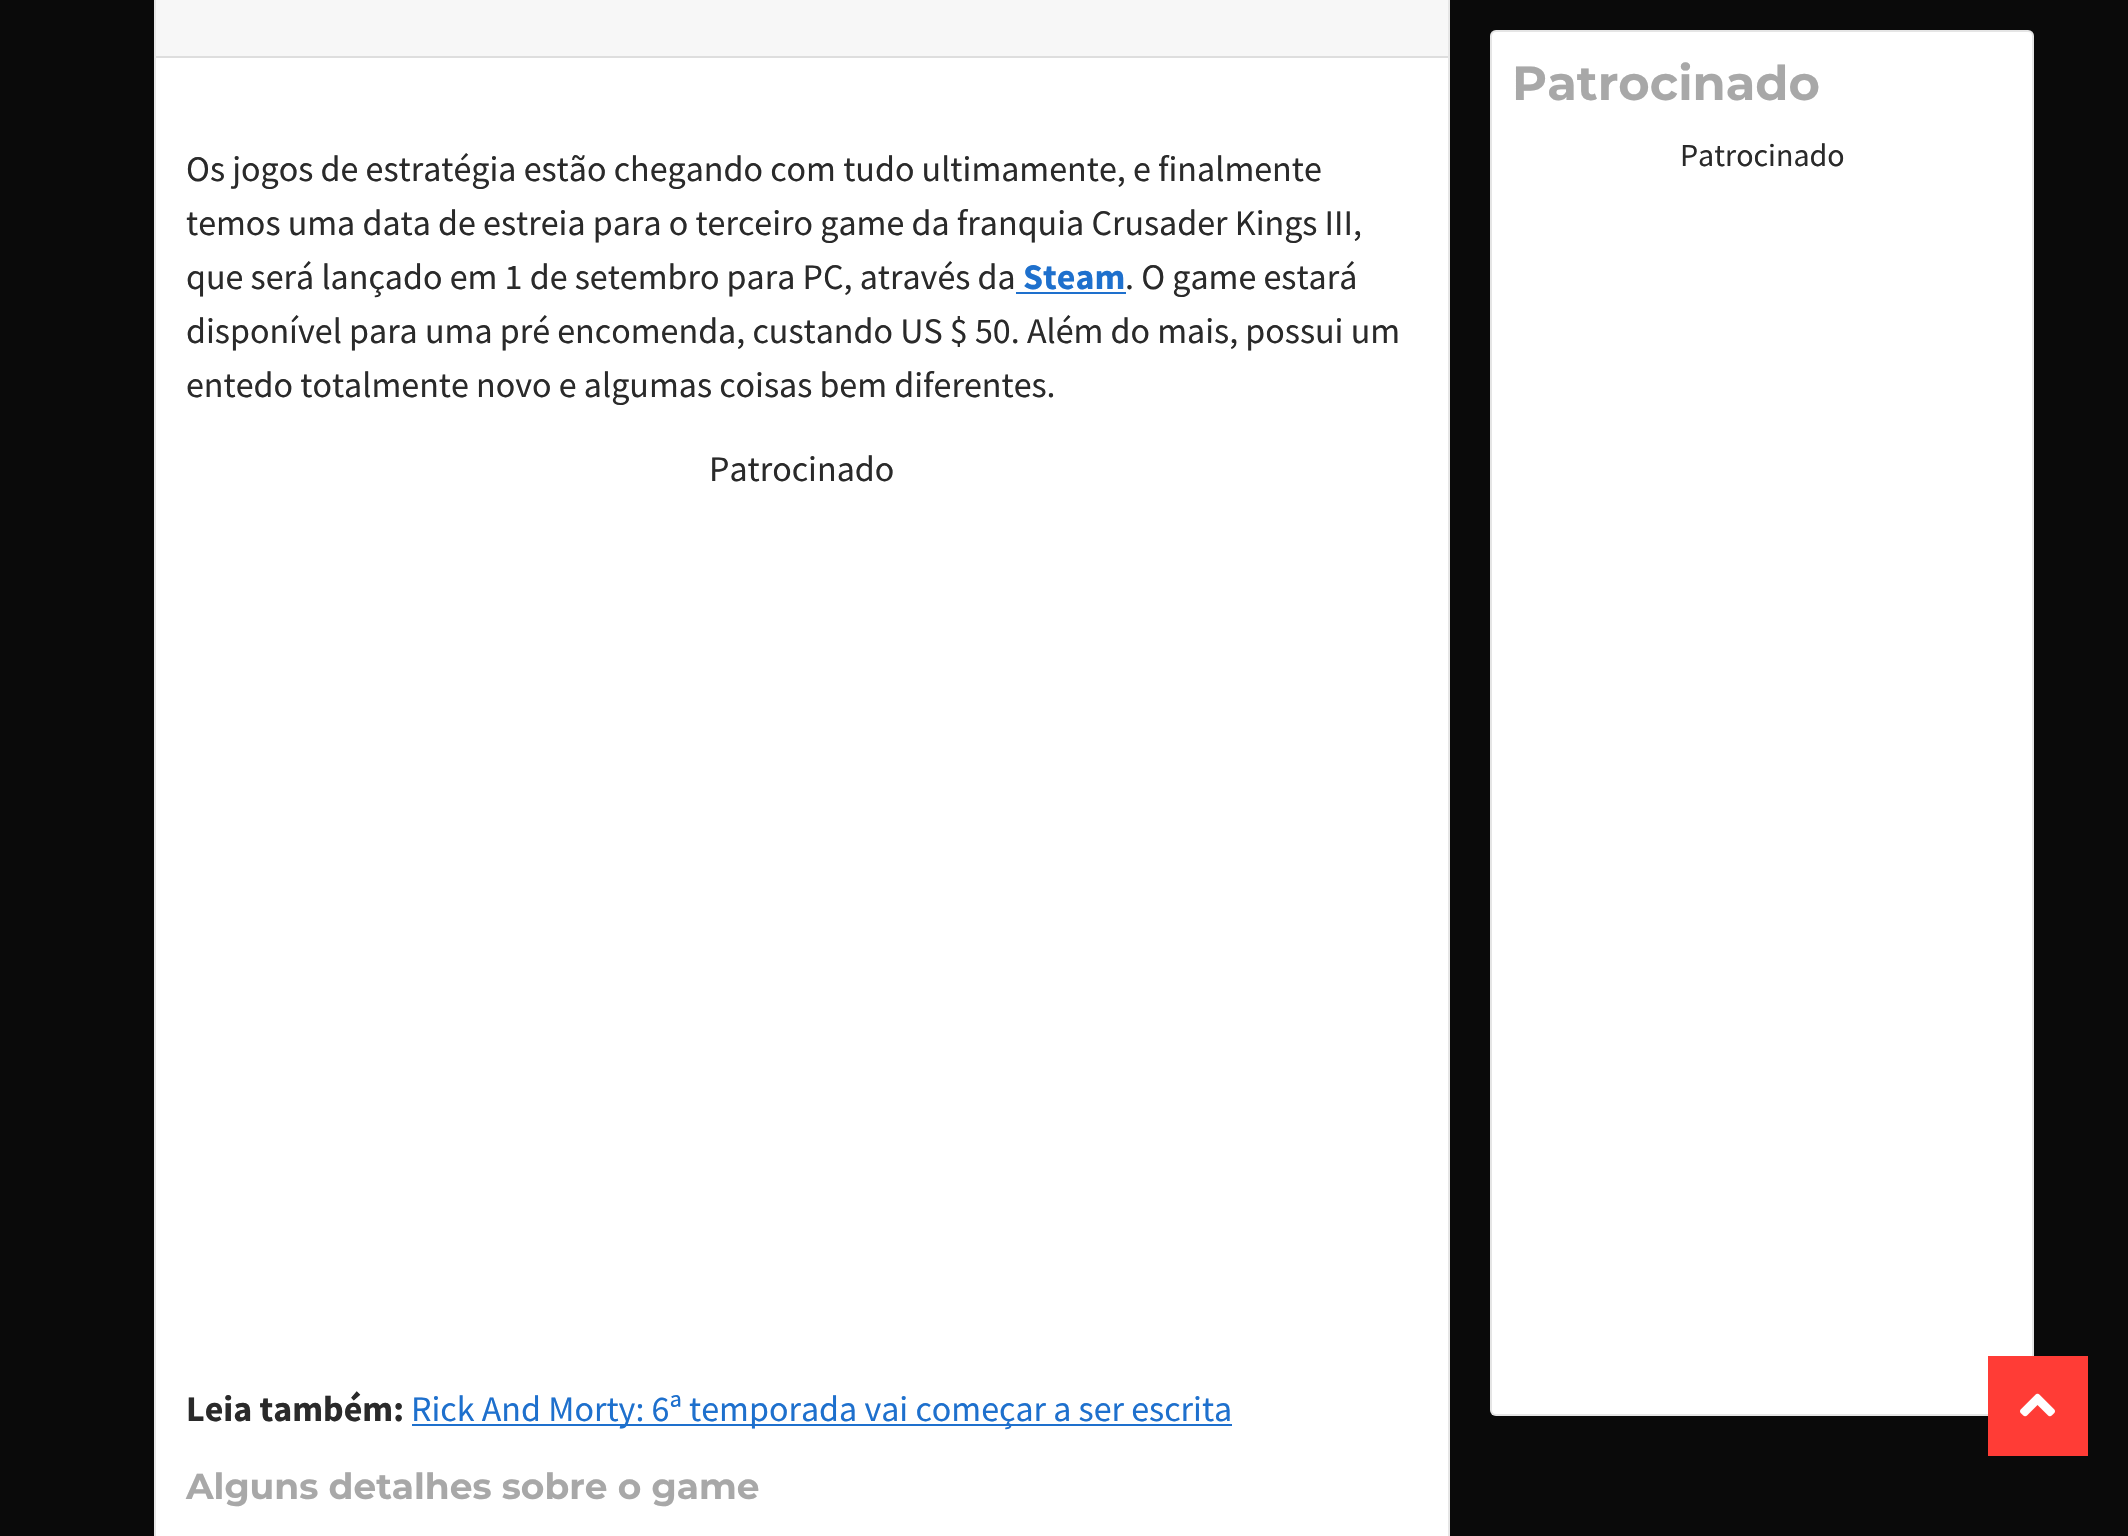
#include "include/core/SkBlurTypes.h"
#include "include/core/SkCanvas.h"
#include "include/core/SkData.h"
#include "include/core/SkFont.h"
#include "include/core/SkFontMgr.h"
#include "include/core/SkImage.h"
#include "include/core/SkMaskFilter.h"
#include "include/core/SkPaint.h"
#include "include/core/SkPathBuilder.h"
#include "include/core/SkTextBlob.h"
#include "include/effects/SkDashPathEffect.h"
#include "include/effects/SkGradientShader.h"
#include "include/utils/SkParsePath.h"

extern sk_sp<SkFontMgr> fontMgr;

void draw(SkCanvas* canvas) {
  SkPaint p;
  p.setAntiAlias(true);
  canvas->clear(SkColorSetRGB(10, 10, 10));
  p.setColor(SK_ColorWHITE);
  canvas->drawRoundRect(SkRect::MakeLTRB(1490, 30, 2034, 1416), 6, 6, p);
  p.setStyle(SkPaint::kStroke_Style);
  p.setStrokeWidth(2);
  p.setColor(SkColorSetARGB(26, 0, 1, 1));
  canvas->drawRoundRect(SkRect::MakeLTRB(1491, 31, 2033, 1415), 5, 5, p);
  p.setStyle(SkPaint::kFill_Style);
  p.setColor(SK_ColorWHITE);
  canvas->drawRect(SkRect::MakeLTRB(156, 58, 1448, 1536), p);
  p.setStyle(SkPaint::kStroke_Style);
  p.setColor(SkColorSetRGB(230, 230, 230));
  canvas->drawRect(SkRect::MakeLTRB(155, -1, 1449, 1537), p);
  p.setStyle(SkPaint::kFill_Style);
  p.setColor(SkColorSetRGB(247, 247, 247));
  canvas->drawRect(SkRect::MakeLTRB(156, 0, 1448, 56), p);
  p.setColor(SkColorSetRGB(222, 222, 222));
  canvas->drawRect(SkRect::MakeLTRB(156, 56, 1448, 58), p);
  p.setColor(SkColorSetRGB(30, 112, 205));
  canvas->drawRect(SkRect::MakeLTRB(1016, 292, 1126, 294), p);
  canvas->drawRect(SkRect::MakeLTRB(412, 1424, 1232, 1426), p);
  p.setColor(SkColorSetRGB(255, 60, 54));
  canvas->drawRect(SkRect::MakeLTRB(1988, 1356, 2088, 1456), p);
  canvas->drawImageRect(SkImages::DeferredFromEncodedData(SkData::MakeFromFileName("images/1.png")), SkRect::MakeLTRB(2020, 1393, 2055, 1417), SkSamplingOptions());
  SkFont font1(fontMgr->matchFamilyStyle("Montserrat", SkFontStyle::Bold()), 48);
  font1.setSubpixel(true);
  p.setColor(SkColorSetRGB(168, 168, 168));
  canvas->drawString("Patrocinado", 1512, 100, font1, p);
  SkFont font2(fontMgr->matchFamilyStyle("Source Sans Pro", SkFontStyle::Normal()), 32);
  font2.setSubpixel(true);
  p.setColor(SkColorSetRGB(42, 42, 42));
  canvas->drawString("Patrocinado", 1680, 166, font2, p);
  SkFont font3(fontMgr->matchFamilyStyle("Source Sans Pro", SkFontStyle::Normal()), 36);
  font3.setSubpixel(true);
  canvas->drawString("Os jogos de estratégia estão chegando com tudo ultimamente, e finalmente", 186, 181, font3, p);
  canvas->drawString("temos uma data de estreia para o terceiro game da franquia Crusader Kings III,", 186, 235, font3, p);
  canvas->drawString("que será lançado em 1 de setembro para PC, através da", 186, 289, font3, p);
  SkFont font4(fontMgr->matchFamilyStyle("Source Sans Pro", SkFontStyle::Bold()), 36);
  font4.setSubpixel(true);
  p.setColor(SkColorSetRGB(30, 112, 205));
  canvas->drawString("Steam", 1023, 289, font4, p);
  p.setColor(SkColorSetRGB(42, 42, 42));
  canvas->drawString(". O game estará", 1125, 289, font3, p);
  canvas->drawString("disponível para uma pré encomenda, custando US $ 50. Além do mais, possui um", 186, 343, font3, p);
  canvas->drawString("entedo totalmente novo e algumas coisas bem diferentes.", 186, 397, font3, p);
  canvas->drawString("Patrocinado", 709, 481, font3, p);
  canvas->drawString("Leia também:", 186, 1421, font4, p);
  p.setColor(SkColorSetRGB(30, 112, 205));
  canvas->drawString("Rick And Morty: 6ª temporada vai começar a ser escrita", 411, 1421, font3, p);
  SkFont font5(fontMgr->matchFamilyStyle("Montserrat", SkFontStyle::Bold()), 36);
  font5.setSubpixel(true);
  p.setColor(SkColorSetRGB(168, 168, 168));
  canvas->drawString("Alguns detalhes sobre o game", 186, 1499, font5, p);
}
